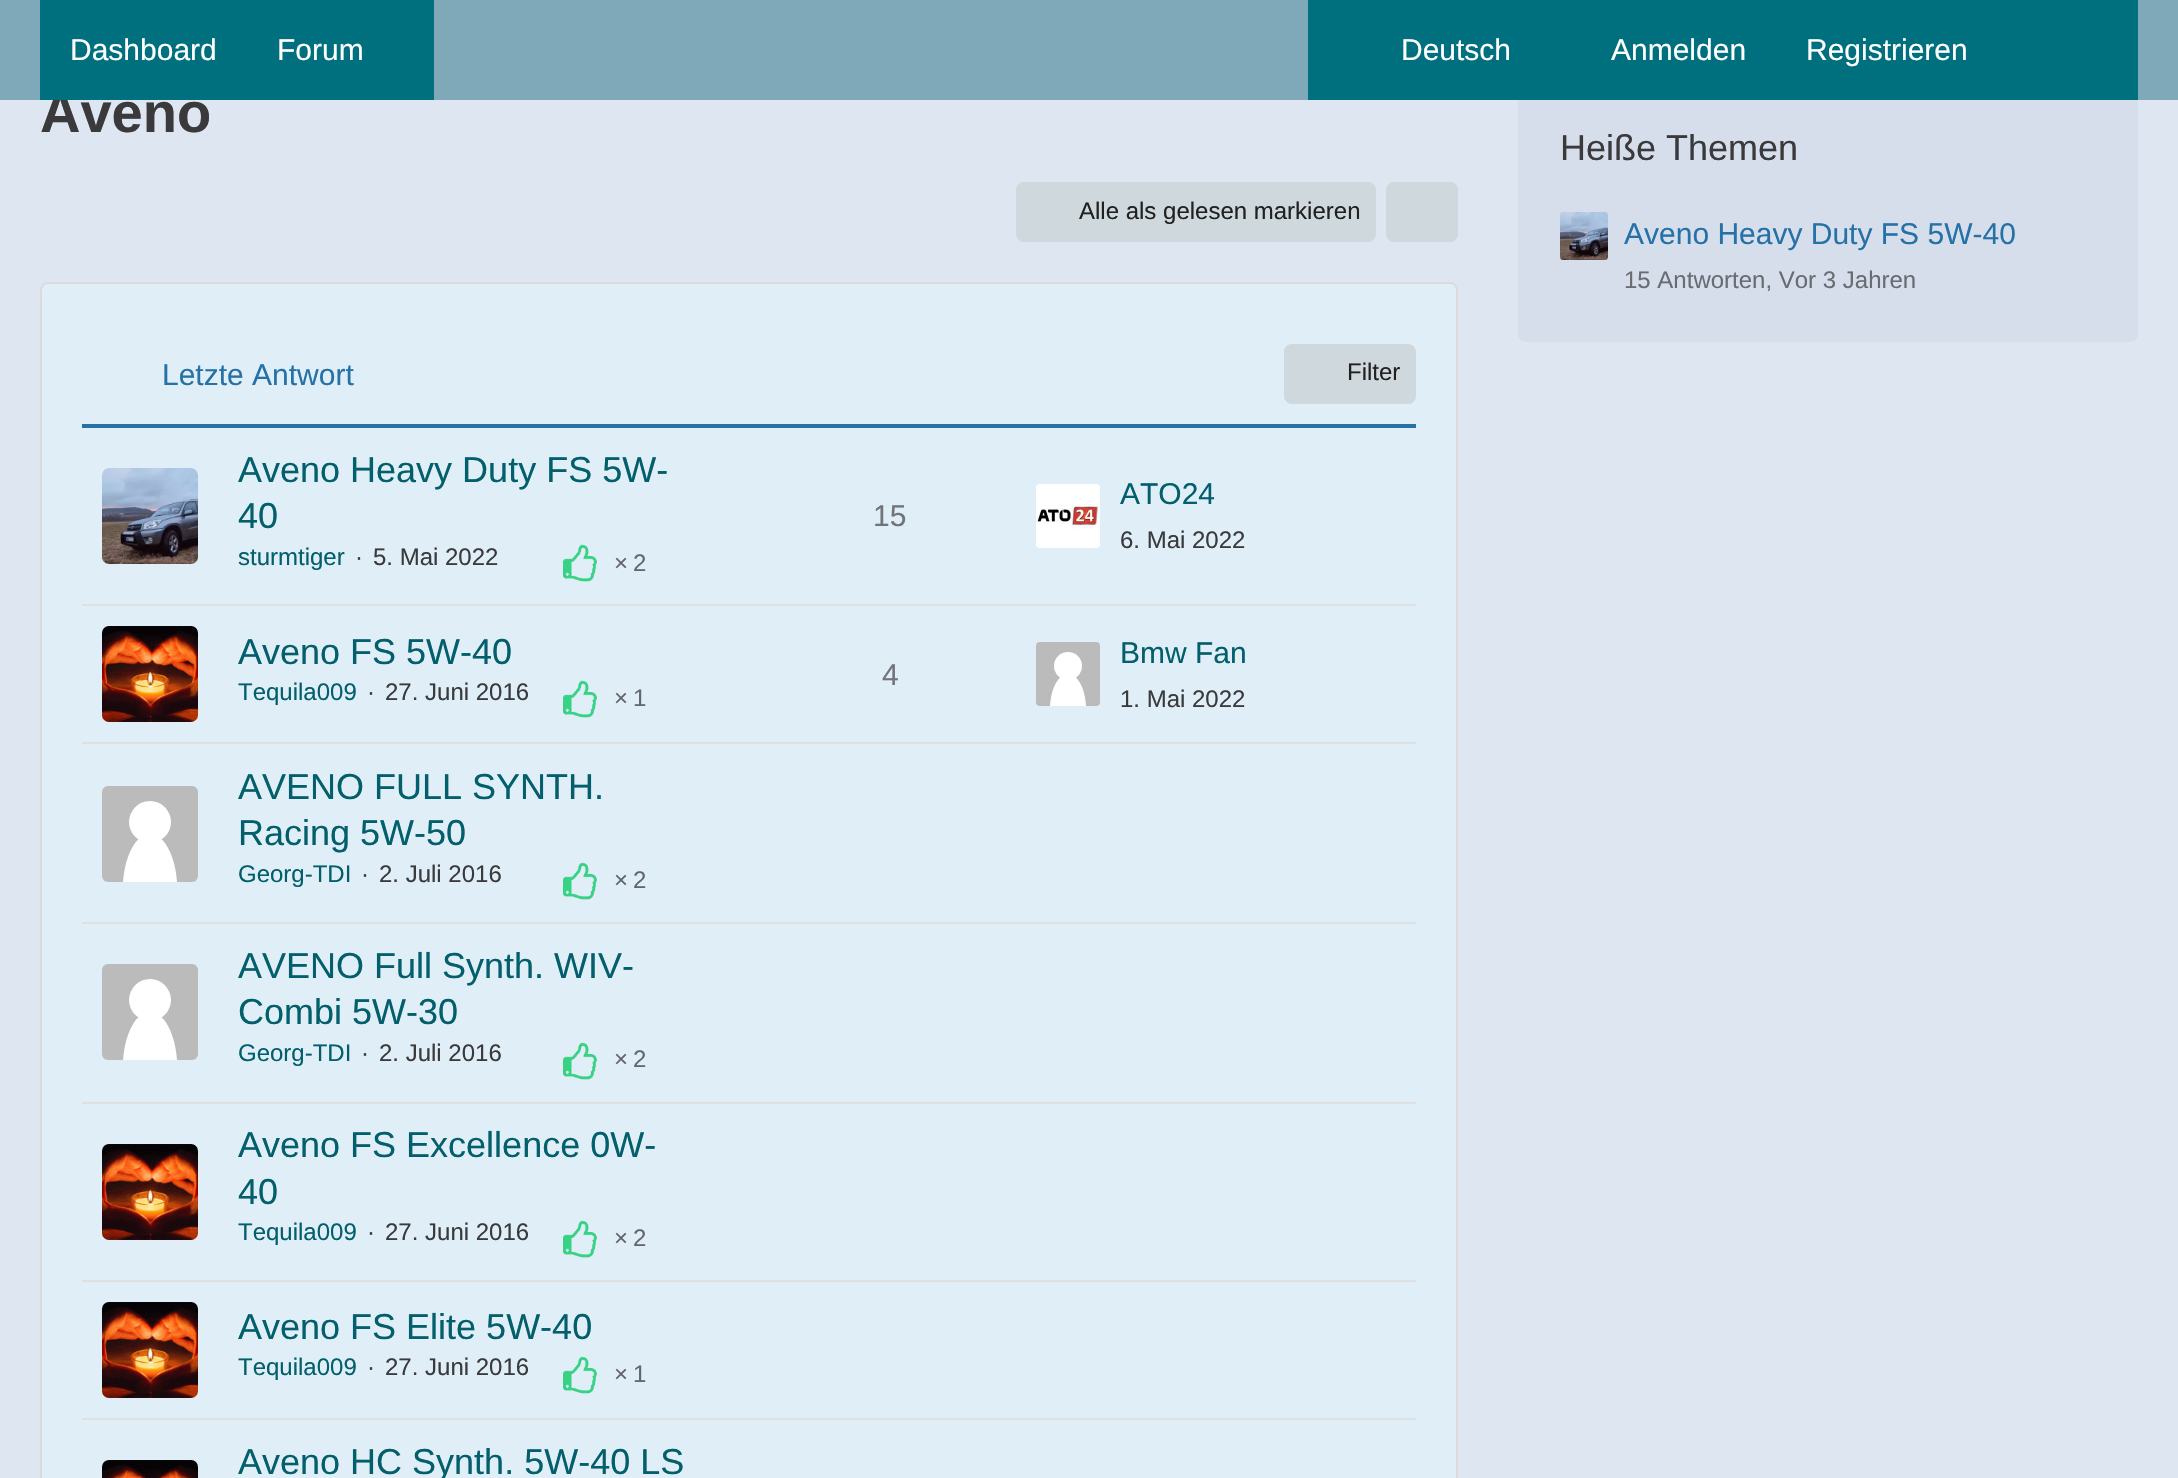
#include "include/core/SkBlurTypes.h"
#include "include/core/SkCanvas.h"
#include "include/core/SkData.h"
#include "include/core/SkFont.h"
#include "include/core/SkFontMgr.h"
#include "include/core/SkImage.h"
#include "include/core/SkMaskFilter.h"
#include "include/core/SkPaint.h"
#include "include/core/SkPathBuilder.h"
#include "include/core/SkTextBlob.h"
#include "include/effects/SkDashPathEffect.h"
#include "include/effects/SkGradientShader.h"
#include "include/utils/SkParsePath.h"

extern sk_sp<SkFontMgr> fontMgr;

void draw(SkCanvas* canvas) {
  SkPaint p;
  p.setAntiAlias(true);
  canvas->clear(SkColorSetRGB(222, 230, 242));
  p.setColor(SkColorSetRGB(207, 216, 220));
  canvas->drawRoundRect(SkRect::MakeLTRB(1016, 182, 1376, 242), 8, 8, p);
  canvas->drawRoundRect(SkRect::MakeLTRB(1386, 182, 1458, 242), 8, 8, p);
  p.setColor(SkColorSetRGB(223, 238, 247));
  canvas->drawRoundRect(SkRect::MakeLTRB(41, 283, 1457, 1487), 7, 7, p);
  p.setStyle(SkPaint::kStroke_Style);
  p.setStrokeWidth(2);
  p.setColor(SkColorSetRGB(219, 219, 219));
  canvas->drawRoundRect(SkRect::MakeLTRB(41, 283, 1457, 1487), 7, 7, p);
  p.setStyle(SkPaint::kFill_Style);
  p.setColor(SkColorSetRGB(38, 113, 166));
  canvas->drawRect(SkRect::MakeLTRB(82, 424, 1416, 428), p);
  p.setColor(SkColorSetRGB(207, 216, 220));
  canvas->drawRoundRect(SkRect::MakeLTRB(1284, 344, 1416, 404), 8, 8, p);
  p.setColor(SK_ColorWHITE);
  canvas->drawRoundRect(SkRect::MakeLTRB(102, 468, 198, 564), 6, 6, p);
  canvas->drawImageRect(SkImages::DeferredFromEncodedData(SkData::MakeFromFileName("images/1.png")), SkRect::MakeLTRB(102, 468, 198, 564), SkSamplingOptions());
  canvas->drawImageRect(SkImages::DeferredFromEncodedData(SkData::MakeFromFileName("images/2.png")), SkRect::MakeLTRB(563, 544, 597, 582), SkSamplingOptions());
  canvas->drawRoundRect(SkRect::MakeLTRB(1036, 484, 1100, 548), 4, 4, p);
  canvas->drawImageRect(SkImages::DeferredFromEncodedData(SkData::MakeFromFileName("images/3.png")), SkRect::MakeLTRB(1036, 484, 1100, 548), SkSamplingOptions());
  p.setColor(SkColorSetRGB(224, 224, 224));
  canvas->drawRect(SkRect::MakeLTRB(82, 604, 1416, 606), p);
  p.setColor(SK_ColorWHITE);
  canvas->drawRoundRect(SkRect::MakeLTRB(102, 626, 198, 722), 6, 6, p);
  canvas->drawImageRect(SkImages::DeferredFromEncodedData(SkData::MakeFromFileName("images/4.png")), SkRect::MakeLTRB(102, 626, 198, 722), SkSamplingOptions());
  canvas->drawImageRect(SkImages::DeferredFromEncodedData(SkData::MakeFromFileName("images/2.png")), SkRect::MakeLTRB(563, 680, 597, 718), SkSamplingOptions());
  p.setColor(SkColorSetRGB(187, 187, 187));
  canvas->drawRoundRect(SkRect::MakeLTRB(1036, 642, 1100, 706), 4, 4, p);
  p.setColor(SK_ColorWHITE);
  canvas->drawPath(SkPathBuilder().moveTo(1050, 706).cubicTo(1051, 688, 1058.5f, 674, 1068, 674).cubicTo(1077.5f, 674, 1085, 688, 1086, 706).detach(), p);
  canvas->drawCircle(1068, 666, 14, p);
  p.setColor(SkColorSetRGB(224, 224, 224));
  canvas->drawRect(SkRect::MakeLTRB(82, 742, 1416, 744), p);
  p.setColor(SkColorSetRGB(187, 187, 187));
  canvas->drawRoundRect(SkRect::MakeLTRB(102, 786, 198, 882), 6, 6, p);
  p.setColor(SK_ColorWHITE);
  canvas->drawPath(SkPathBuilder().moveTo(123, 882).cubicTo(125, 855, 136, 834, 150, 834).cubicTo(164, 834, 175, 855, 177, 882).detach(), p);
  canvas->drawCircle(150, 822, 21, p);
  canvas->drawImageRect(SkImages::DeferredFromEncodedData(SkData::MakeFromFileName("images/2.png")), SkRect::MakeLTRB(563, 862, 597, 900), SkSamplingOptions());
  p.setColor(SkColorSetRGB(224, 224, 224));
  canvas->drawRect(SkRect::MakeLTRB(82, 922, 1416, 924), p);
  p.setColor(SkColorSetRGB(187, 187, 187));
  canvas->drawRoundRect(SkRect::MakeLTRB(102, 964, 198, 1060), 6, 6, p);
  p.setColor(SK_ColorWHITE);
  canvas->drawPath(SkPathBuilder().moveTo(123, 1060).cubicTo(125, 1033, 136, 1012, 150, 1012).cubicTo(164, 1012, 175, 1033, 177, 1060).detach(), p);
  canvas->drawCircle(150, 1000, 21, p);
  canvas->drawImageRect(SkImages::DeferredFromEncodedData(SkData::MakeFromFileName("images/2.png")), SkRect::MakeLTRB(563, 1042, 597, 1080), SkSamplingOptions());
  p.setColor(SkColorSetRGB(224, 224, 224));
  canvas->drawRect(SkRect::MakeLTRB(82, 1102, 1416, 1104), p);
  p.setColor(SK_ColorWHITE);
  canvas->drawRoundRect(SkRect::MakeLTRB(102, 1144, 198, 1240), 6, 6, p);
  canvas->drawImageRect(SkImages::DeferredFromEncodedData(SkData::MakeFromFileName("images/4.png")), SkRect::MakeLTRB(102, 1144, 198, 1240), SkSamplingOptions());
  canvas->drawImageRect(SkImages::DeferredFromEncodedData(SkData::MakeFromFileName("images/5.png")), SkRect::MakeLTRB(563, 1220, 597, 1258), SkSamplingOptions());
  p.setColor(SkColorSetRGB(224, 224, 224));
  canvas->drawRect(SkRect::MakeLTRB(82, 1280, 1416, 1282), p);
  p.setColor(SK_ColorWHITE);
  canvas->drawRoundRect(SkRect::MakeLTRB(102, 1302, 198, 1398), 6, 6, p);
  canvas->drawImageRect(SkImages::DeferredFromEncodedData(SkData::MakeFromFileName("images/4.png")), SkRect::MakeLTRB(102, 1302, 198, 1398), SkSamplingOptions());
  canvas->drawImageRect(SkImages::DeferredFromEncodedData(SkData::MakeFromFileName("images/2.png")), SkRect::MakeLTRB(563, 1356, 597, 1394), SkSamplingOptions());
  p.setColor(SkColorSetRGB(224, 224, 224));
  canvas->drawRect(SkRect::MakeLTRB(82, 1418, 1416, 1420), p);
  p.setColor(SK_ColorWHITE);
  canvas->drawRoundRect(SkRect::MakeLTRB(102, 1460, 198, 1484), 6, 6, p);
  canvas->drawImageRect(SkImages::DeferredFromEncodedData(SkData::MakeFromFileName("images/6.png")), SkRect::MakeLTRB(102, 1460, 198, 1478), SkSamplingOptions());
  p.setColor(SkColorSetRGB(214, 222, 236));
  canvas->drawRoundRect(SkRect::MakeLTRB(1518, 84, 2138, 342), 8, 8, p);
  canvas->drawImageRect(SkImages::DeferredFromEncodedData(SkData::MakeFromFileName("images/7.png")), SkRect::MakeLTRB(1560, 212, 1608, 260), SkSamplingOptions());
  SkFont font1(fontMgr->matchFamilyStyle("Liberation Sans", SkFontStyle::Bold()), 56);
  font1.setSubpixel(true);
  p.setColor(SkColorSetRGB(58, 58, 61));
  canvas->drawString("Aveno", 40, 132, font1, p);
  p.setColor(SkColorSetRGB(127, 168, 185));
  canvas->drawRect(SkRect::MakeLTRB(0, 0, 2178, 100), p);
  p.setColor(SkColorSetRGB(0, 111, 126));
  canvas->drawRect(SkRect::MakeLTRB(1308, 0, 2138, 100), p);
  SkFont font2(fontMgr->matchFamilyStyle("Liberation Sans", SkFontStyle::Normal()), 30);
  font2.setSubpixel(true);
  p.setColor(SK_ColorWHITE);
  canvas->drawString("Registrieren", 1806, 60, font2, p);
  canvas->drawString("Anmelden", 1611, 60, font2, p);
  canvas->drawString("Deutsch", 1401, 60, font2, p);
  p.setColor(SkColorSetRGB(0, 111, 126));
  canvas->drawRect(SkRect::MakeLTRB(40, 0, 434, 100), p);
  p.setColor(SK_ColorWHITE);
  canvas->drawString("Forum", 277, 60, font2, p);
  canvas->drawString("Dashboard", 70, 60, font2, p);
  SkFont font3(fontMgr->matchFamilyStyle("Liberation Sans", SkFontStyle::Normal()), 24);
  font3.setSubpixel(true);
  p.setColor(SkColorSetRGB(33, 33, 33));
  canvas->drawString("Alle als gelesen markieren", 1079, 219, font3, p);
  p.setColor(SkColorSetRGB(38, 113, 166));
  canvas->drawString("Letzte Antwort", 162, 385, font2, p);
  p.setColor(SkColorSetRGB(33, 33, 33));
  canvas->drawString("Filter", 1347, 380, font3, p);
  SkFont font4(fontMgr->matchFamilyStyle("Liberation Sans", SkFontStyle::Normal()), 36);
  font4.setSubpixel(true);
  p.setColor(SkColorSetRGB(2, 95, 107));
  canvas->drawString("Aveno Heavy Duty FS 5W-", 238, 482, font4, p);
  canvas->drawString("40", 238, 528, font4, p);
  canvas->drawString("sturmtiger", 238, 565, font3, p);
  p.setColor(SkColorSetRGB(58, 58, 61));
  canvas->drawString("·", 355, 565, font3, p);
  canvas->drawString("5. Mai 2022", 373, 565, font3, p);
  p.setColor(SkColorSetRGB(99, 103, 108));
  canvas->drawString("×", 614, 571, font3, p);
  canvas->drawString("2", 633, 571, font3, p);
  p.setColor(SkColorSetRGB(113, 117, 122));
  canvas->drawString("15", 873, 526, font2, p);
  p.setColor(SkColorSetRGB(2, 95, 107));
  canvas->drawString("ATO24", 1120, 504, font2, p);
  p.setColor(SkColorSetRGB(58, 58, 61));
  canvas->drawString("6. Mai 2022", 1120, 548, font3, p);
  p.setColor(SkColorSetRGB(2, 95, 107));
  canvas->drawString("Aveno FS 5W-40", 238, 664, font4, p);
  canvas->drawString("Tequila009", 238, 700, font3, p);
  p.setColor(SkColorSetRGB(58, 58, 61));
  canvas->drawString("·", 367, 700, font3, p);
  canvas->drawString("27. Juni 2016", 385, 700, font3, p);
  p.setColor(SkColorSetRGB(99, 103, 108));
  canvas->drawString("×", 614, 706, font3, p);
  canvas->drawString("1", 633, 706, font3, p);
  p.setColor(SkColorSetRGB(113, 117, 122));
  canvas->drawString("4", 882, 685, font2, p);
  p.setColor(SkColorSetRGB(2, 95, 107));
  canvas->drawString("Bmw Fan", 1120, 663, font2, p);
  p.setColor(SkColorSetRGB(58, 58, 61));
  canvas->drawString("1. Mai 2022", 1120, 707, font3, p);
  p.setColor(SkColorSetRGB(2, 95, 107));
  canvas->drawString("AVENO FULL SYNTH.", 238, 799, font4, p);
  canvas->drawString("Racing 5W-50", 238, 845, font4, p);
  canvas->drawString("Georg-TDI", 238, 882, font3, p);
  p.setColor(SkColorSetRGB(58, 58, 61));
  canvas->drawString("·", 361, 882, font3, p);
  canvas->drawString("2. Juli 2016", 379, 882, font3, p);
  p.setColor(SkColorSetRGB(99, 103, 108));
  canvas->drawString("×", 614, 888, font3, p);
  canvas->drawString("2", 633, 888, font3, p);
  p.setColor(SkColorSetRGB(2, 95, 107));
  canvas->drawString("AVENO Full Synth. WIV-", 238, 978, font4, p);
  canvas->drawString("Combi 5W-30", 238, 1024, font4, p);
  canvas->drawString("Georg-TDI", 238, 1061, font3, p);
  p.setColor(SkColorSetRGB(58, 58, 61));
  canvas->drawString("·", 361, 1061, font3, p);
  canvas->drawString("2. Juli 2016", 379, 1061, font3, p);
  p.setColor(SkColorSetRGB(99, 103, 108));
  canvas->drawString("×", 614, 1067, font3, p);
  canvas->drawString("2", 633, 1067, font3, p);
  p.setColor(SkColorSetRGB(2, 95, 107));
  canvas->drawString("Aveno FS Excellence 0W-", 238, 1157, font4, p);
  canvas->drawString("40", 238, 1204, font4, p);
  canvas->drawString("Tequila009", 238, 1240, font3, p);
  p.setColor(SkColorSetRGB(58, 58, 61));
  canvas->drawString("·", 367, 1240, font3, p);
  canvas->drawString("27. Juni 2016", 385, 1240, font3, p);
  p.setColor(SkColorSetRGB(99, 103, 108));
  canvas->drawString("×", 614, 1246, font3, p);
  canvas->drawString("2", 633, 1246, font3, p);
  p.setColor(SkColorSetRGB(2, 95, 107));
  canvas->drawString("Aveno FS Elite 5W-40", 238, 1339, font4, p);
  canvas->drawString("Tequila009", 238, 1375, font3, p);
  p.setColor(SkColorSetRGB(58, 58, 61));
  canvas->drawString("·", 367, 1375, font3, p);
  canvas->drawString("27. Juni 2016", 385, 1375, font3, p);
  p.setColor(SkColorSetRGB(99, 103, 108));
  canvas->drawString("×", 614, 1382, font3, p);
  canvas->drawString("1", 633, 1382, font3, p);
  p.setColor(SkColorSetRGB(2, 95, 107));
  canvas->drawString("Aveno HC Synth. 5W-40 LS", 238, 1474, font4, p);
  p.setColor(SkColorSetRGB(58, 58, 61));
  canvas->drawString("Heiße Themen", 1560, 160, font4, p);
  p.setColor(SkColorSetRGB(38, 113, 166));
  canvas->drawString("Aveno Heavy Duty FS 5W-40", 1624, 244, font2, p);
  p.setColor(SkColorSetRGB(105, 109, 114));
  canvas->drawString("15 Antworten, Vor 3 Jahren", 1624, 288, font3, p);
}
